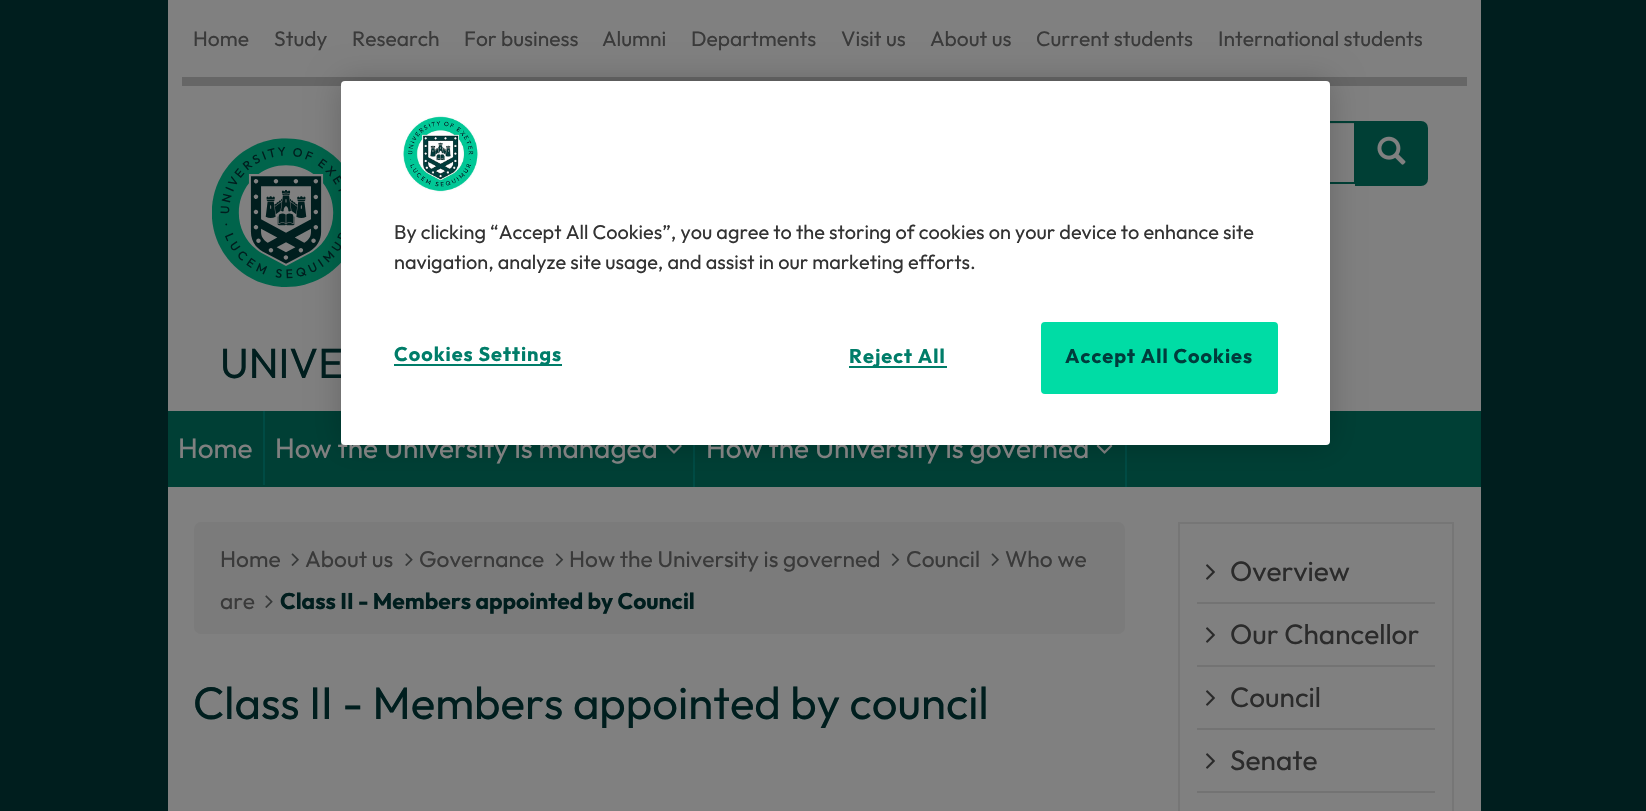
#include "include/core/SkBlurTypes.h"
#include "include/core/SkCanvas.h"
#include "include/core/SkData.h"
#include "include/core/SkFont.h"
#include "include/core/SkFontMgr.h"
#include "include/core/SkImage.h"
#include "include/core/SkMaskFilter.h"
#include "include/core/SkPaint.h"
#include "include/core/SkPathBuilder.h"
#include "include/core/SkTextBlob.h"
#include "include/effects/SkDashPathEffect.h"
#include "include/effects/SkGradientShader.h"
#include "include/utils/SkParsePath.h"

extern sk_sp<SkFontMgr> fontMgr;

void draw(SkCanvas* canvas) {
  SkPaint p;
  p.setAntiAlias(true);
  auto spacedText = [&](const char* s, float x, float y, const SkFont& font, const SkPaint& ink, float letter, float word) {
    std::vector<SkGlyphID> glyphs(font.countText(s, strlen(s), SkTextEncoding::kUTF8));
    std::vector<float> xs(glyphs.size());
    font.textToGlyphs(s, strlen(s), SkTextEncoding::kUTF8, glyphs);
    font.getXPos(glyphs, xs, x);
    float extra = 0;
    for (size_t i = 0; i < glyphs.size(); i++) {
      xs[i] += extra;
      extra += letter + word * (glyphs[i] == font.unicharToGlyph(' '));
    }
    canvas->drawTextBlob(SkTextBlob::MakeFromPosHGlyphs(glyphs, xs, y, font), 0, 0, ink);
  };
  canvas->clear(SkColorSetRGB(0, 30, 30));
  p.setColor(SkColorSetRGB(128, 128, 128));
  canvas->drawRect(SkRect::MakeLTRB(168, 0, 1481, 411), p);
  p.setColor(SkColorSetRGB(102, 102, 102));
  canvas->drawRect(SkRect::MakeLTRB(182, 77, 1467, 86), p);
  p.setColor(SkColorSetRGB(118, 118, 118));
  canvas->drawPath(SkPathBuilder().moveTo(961, 124).lineTo(1354, 124).lineTo(1354, 182).lineTo(1355, 182).lineTo(1355, 123).lineTo(961, 123).cubicTo(958, 123, 956, 125, 956, 128).lineTo(956, 130).cubicTo(956, 127, 958, 124, 961, 124).close().detach(), p);
  p.setStyle(SkPaint::kStroke_Style);
  p.setStrokeWidth(2);
  p.setColor(SkColorSetRGB(0, 63, 53));
  canvas->drawRect(SkRect::MakeLTRB(955, 122, 1355, 183), p);
  p.setStyle(SkPaint::kFill_Style);
  canvas->drawPath(SkPathBuilder().moveTo(1356, 122).lineTo(1421, 122).cubicTo(1424.5f, 122, 1427, 124.5f, 1427, 128).lineTo(1427, 179).cubicTo(1427, 182.5f, 1424.5f, 185, 1421, 185).lineTo(1356, 185).close().detach(), p);
  p.setStyle(SkPaint::kStroke_Style);
  canvas->drawPath(SkPathBuilder().moveTo(1356, 122).lineTo(1421, 122).cubicTo(1424.5f, 122, 1427, 124.5f, 1427, 128).lineTo(1427, 179).cubicTo(1427, 182.5f, 1424.5f, 185, 1421, 185).lineTo(1356, 185).close().detach(), p);
  canvas->drawImageRect(SkImages::DeferredFromEncodedData(SkData::MakeFromFileName("images/1.png")), SkRect::MakeLTRB(1377, 136, 1406, 165), SkSamplingOptions());
  canvas->drawImageRect(SkImages::DeferredFromEncodedData(SkData::MakeFromFileName("images/2.png")), SkRect::MakeLTRB(212, 138, 341, 287), SkSamplingOptions());
  p.setStyle(SkPaint::kFill_Style);
  canvas->drawRect(SkRect::MakeLTRB(168, 411, 1481, 487), p);
  p.setColor(SkColorSetRGB(0, 75, 68));
  canvas->drawRect(SkRect::MakeLTRB(263, 411, 265, 485), p);
  canvas->drawRect(SkRect::MakeLTRB(693, 445, 695, 487), p);
  canvas->drawImageRect(SkImages::DeferredFromEncodedData(SkData::MakeFromFileName("images/3.png")), SkRect::MakeLTRB(666, 445, 682, 454), SkSamplingOptions());
  canvas->drawRect(SkRect::MakeLTRB(1125, 445, 1127, 487), p);
  canvas->drawImageRect(SkImages::DeferredFromEncodedData(SkData::MakeFromFileName("images/4.png")), SkRect::MakeLTRB(1096, 445, 1113, 454), SkSamplingOptions());
  p.setColor(SkColorSetRGB(128, 128, 128));
  canvas->drawRect(SkRect::MakeLTRB(168, 487, 1481, 811), p);
  p.setColor(SkColorSetARGB(51, 0, 0, 0));
  p.setMaskFilter(SkMaskFilter::MakeBlur(kNormal_SkBlurStyle, 16));
  canvas->drawRoundRect(SkRect::MakeLTRB(341, 81, 1330, 445), 4, 4, p);
  p.setMaskFilter(nullptr);
  p.setColor(SkColorSetRGB(123, 123, 123));
  canvas->drawRoundRect(SkRect::MakeLTRB(194, 522, 1125, 634), 7, 7, p);
  canvas->drawImageRect(SkImages::DeferredFromEncodedData(SkData::MakeFromFileName("images/6.png")), SkRect::MakeLTRB(291, 553, 299, 566), SkSamplingOptions());
  canvas->drawImageRect(SkImages::DeferredFromEncodedData(SkData::MakeFromFileName("images/7.png")), SkRect::MakeLTRB(405, 553, 413, 566), SkSamplingOptions());
  canvas->drawImageRect(SkImages::DeferredFromEncodedData(SkData::MakeFromFileName("images/8.png")), SkRect::MakeLTRB(555, 553, 564, 566), SkSamplingOptions());
  canvas->drawImageRect(SkImages::DeferredFromEncodedData(SkData::MakeFromFileName("images/8.png")), SkRect::MakeLTRB(891, 553, 900, 566), SkSamplingOptions());
  canvas->drawImageRect(SkImages::DeferredFromEncodedData(SkData::MakeFromFileName("images/6.png")), SkRect::MakeLTRB(991, 553, 999, 566), SkSamplingOptions());
  canvas->drawImageRect(SkImages::DeferredFromEncodedData(SkData::MakeFromFileName("images/7.png")), SkRect::MakeLTRB(265, 595, 273, 608), SkSamplingOptions());
  p.setStyle(SkPaint::kStroke_Style);
  p.setColor(SkColorSetRGB(118, 118, 118));
  canvas->drawRect(SkRect::MakeLTRB(1179, 523, 1453, 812), p);
  p.setStyle(SkPaint::kFill_Style);
  p.setColor(SkColorSetRGB(115, 115, 115));
  canvas->drawRect(SkRect::MakeLTRB(1197, 602, 1435, 604), p);
  canvas->drawImageRect(SkImages::DeferredFromEncodedData(SkData::MakeFromFileName("images/9.png")), SkRect::MakeLTRB(1206, 564, 1215, 580), SkSamplingOptions());
  canvas->drawRect(SkRect::MakeLTRB(1197, 665, 1435, 667), p);
  canvas->drawImageRect(SkImages::DeferredFromEncodedData(SkData::MakeFromFileName("images/9.png")), SkRect::MakeLTRB(1206, 627, 1215, 643), SkSamplingOptions());
  canvas->drawRect(SkRect::MakeLTRB(1197, 728, 1435, 730), p);
  canvas->drawImageRect(SkImages::DeferredFromEncodedData(SkData::MakeFromFileName("images/9.png")), SkRect::MakeLTRB(1206, 690, 1215, 706), SkSamplingOptions());
  canvas->drawRect(SkRect::MakeLTRB(1197, 791, 1435, 793), p);
  canvas->drawImageRect(SkImages::DeferredFromEncodedData(SkData::MakeFromFileName("images/9.png")), SkRect::MakeLTRB(1206, 753, 1215, 769), SkSamplingOptions());
  SkFont font1(fontMgr->matchFamilyStyle("Outfit", SkFontStyle(100, SkFontStyle::kNormal_Width, SkFontStyle::kUpright_Slant)), 21);
  font1.setSubpixel(true);
  p.setColor(SkColorSetRGB(58, 58, 58));
  canvas->drawString("Home", 193, 46, font1, p);
  canvas->drawString("Study", 274, 46, font1, p);
  canvas->drawString("Research", 352, 46, font1, p);
  canvas->drawString("For business", 464, 46, font1, p);
  canvas->drawString("Alumni", 602, 46, font1, p);
  canvas->drawString("Departments", 691, 46, font1, p);
  canvas->drawString("Visit us", 841, 46, font1, p);
  canvas->drawString("About us", 930, 46, font1, p);
  canvas->drawString("Current students", 1036, 46, font1, p);
  canvas->drawString("International students", 1218, 46, font1, p);
  SkFont font2(fontMgr->matchFamilyStyle("Outfit", SkFontStyle(100, SkFontStyle::kNormal_Width, SkFontStyle::kUpright_Slant)), 42);
  font2.setSubpixel(true);
  p.setColor(SkColorSetRGB(0, 30, 30));
  canvas->drawString("UNIVE", 220, 378, font2, p);
  SkFont font3(fontMgr->matchFamilyStyle("Outfit", SkFontStyle(100, SkFontStyle::kNormal_Width, SkFontStyle::kUpright_Slant)), 28);
  font3.setSubpixel(true);
  p.setColor(SkColorSetRGB(128, 128, 128));
  canvas->drawString("Home", 178, 458, font3, p);
  canvas->drawString("How the University is managed", 275, 458, font3, p);
  canvas->drawString("How the University is governed", 706, 458, font3, p);
  p.setColor(SK_ColorWHITE);
  canvas->drawRoundRect(SkRect::MakeLTRB(341, 81, 1330, 445), 4, 4, p);
  canvas->drawImageRect(SkImages::DeferredFromEncodedData(SkData::MakeFromFileName("images/5.png")), SkRect::MakeLTRB(403, 115, 479, 193), SkSamplingOptions());
  SkFont font4(fontMgr->matchFamilyStyle("Outfit", SkFontStyle(100, SkFontStyle::kNormal_Width, SkFontStyle::kUpright_Slant)), 19.9f);
  font4.setSubpixel(true);
  p.setColor(SkColorSetRGB(51, 51, 51));
  canvas->drawString("By clicking “Accept All Cookies”, you agree to the storing of cookies on your device to enhance site", 394, 239, font4, p);
  canvas->drawString("navigation, analyze site usage, and assist in our marketing efforts.", 394, 269, font4, p);
  p.setColor(SkColorSetRGB(0, 125, 105));
  canvas->drawRect(SkRect::MakeLTRB(394, 364, 562, 366), p);
  SkFont font5(fontMgr->matchFamilyStyle("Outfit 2", SkFontStyle(100, SkFontStyle::kNormal_Width, SkFontStyle::kUpright_Slant)), 19.9f);
  font5.setSubpixel(true);
  spacedText("Cookies Settings", 394, 361, font5, p, 1, 0);
  canvas->drawRect(SkRect::MakeLTRB(849, 366, 947, 368), p);
  spacedText("Reject All", 849, 363, font5, p, 1, 0);
  p.setColor(SkColorSetRGB(0, 220, 165));
  canvas->drawRoundRect(SkRect::MakeLTRB(1042, 323, 1277, 393), 3, 3, p);
  p.setStyle(SkPaint::kStroke_Style);
  canvas->drawRoundRect(SkRect::MakeLTRB(1042, 323, 1277, 393), 3, 3, p);
  p.setStyle(SkPaint::kFill_Style);
  p.setColor(SkColorSetRGB(0, 60, 60));
  spacedText("Accept All Cookies", 1065, 363, font5, p, 1, 0);
  SkFont font6(fontMgr->matchFamilyStyle("Outfit", SkFontStyle(100, SkFontStyle::kNormal_Width, SkFontStyle::kUpright_Slant)), 22.75f);
  font6.setSubpixel(true);
  p.setColor(SkColorSetRGB(58, 58, 58));
  canvas->drawString("Home", 220, 567, font6, p);
  canvas->drawString("About us", 305, 567, font6, p);
  canvas->drawString("Governance", 419, 567, font6, p);
  canvas->drawString("How the University is governed", 569, 567, font6, p);
  canvas->drawString("Council", 906, 567, font6, p);
  canvas->drawString("Who we", 1005, 567, font6, p);
  canvas->drawString("are", 220, 609, font6, p);
  SkFont font7(fontMgr->matchFamilyStyle("Outfit 2", SkFontStyle(100, SkFontStyle::kNormal_Width, SkFontStyle::kUpright_Slant)), 22.75f);
  font7.setSubpixel(true);
  p.setColor(SkColorSetRGB(0, 30, 30));
  canvas->drawString("Class II - Members appointed by Council", 280, 609, font7, p);
  SkFont font8(fontMgr->matchFamilyStyle("Outfit", SkFontStyle(100, SkFontStyle::kNormal_Width, SkFontStyle::kUpright_Slant)), 45.5f);
  font8.setSubpixel(true);
  canvas->drawString("Class II - Members appointed by council", 193, 719, font8, p);
  p.setColor(SkColorSetRGB(43, 43, 43));
  canvas->drawString("Overview", 1230, 581, font3, p);
  canvas->drawString("Our Chancellor", 1230, 644, font3, p);
  canvas->drawString("Council", 1230, 707, font3, p);
  canvas->drawString("Senate", 1230, 770, font3, p);
}
